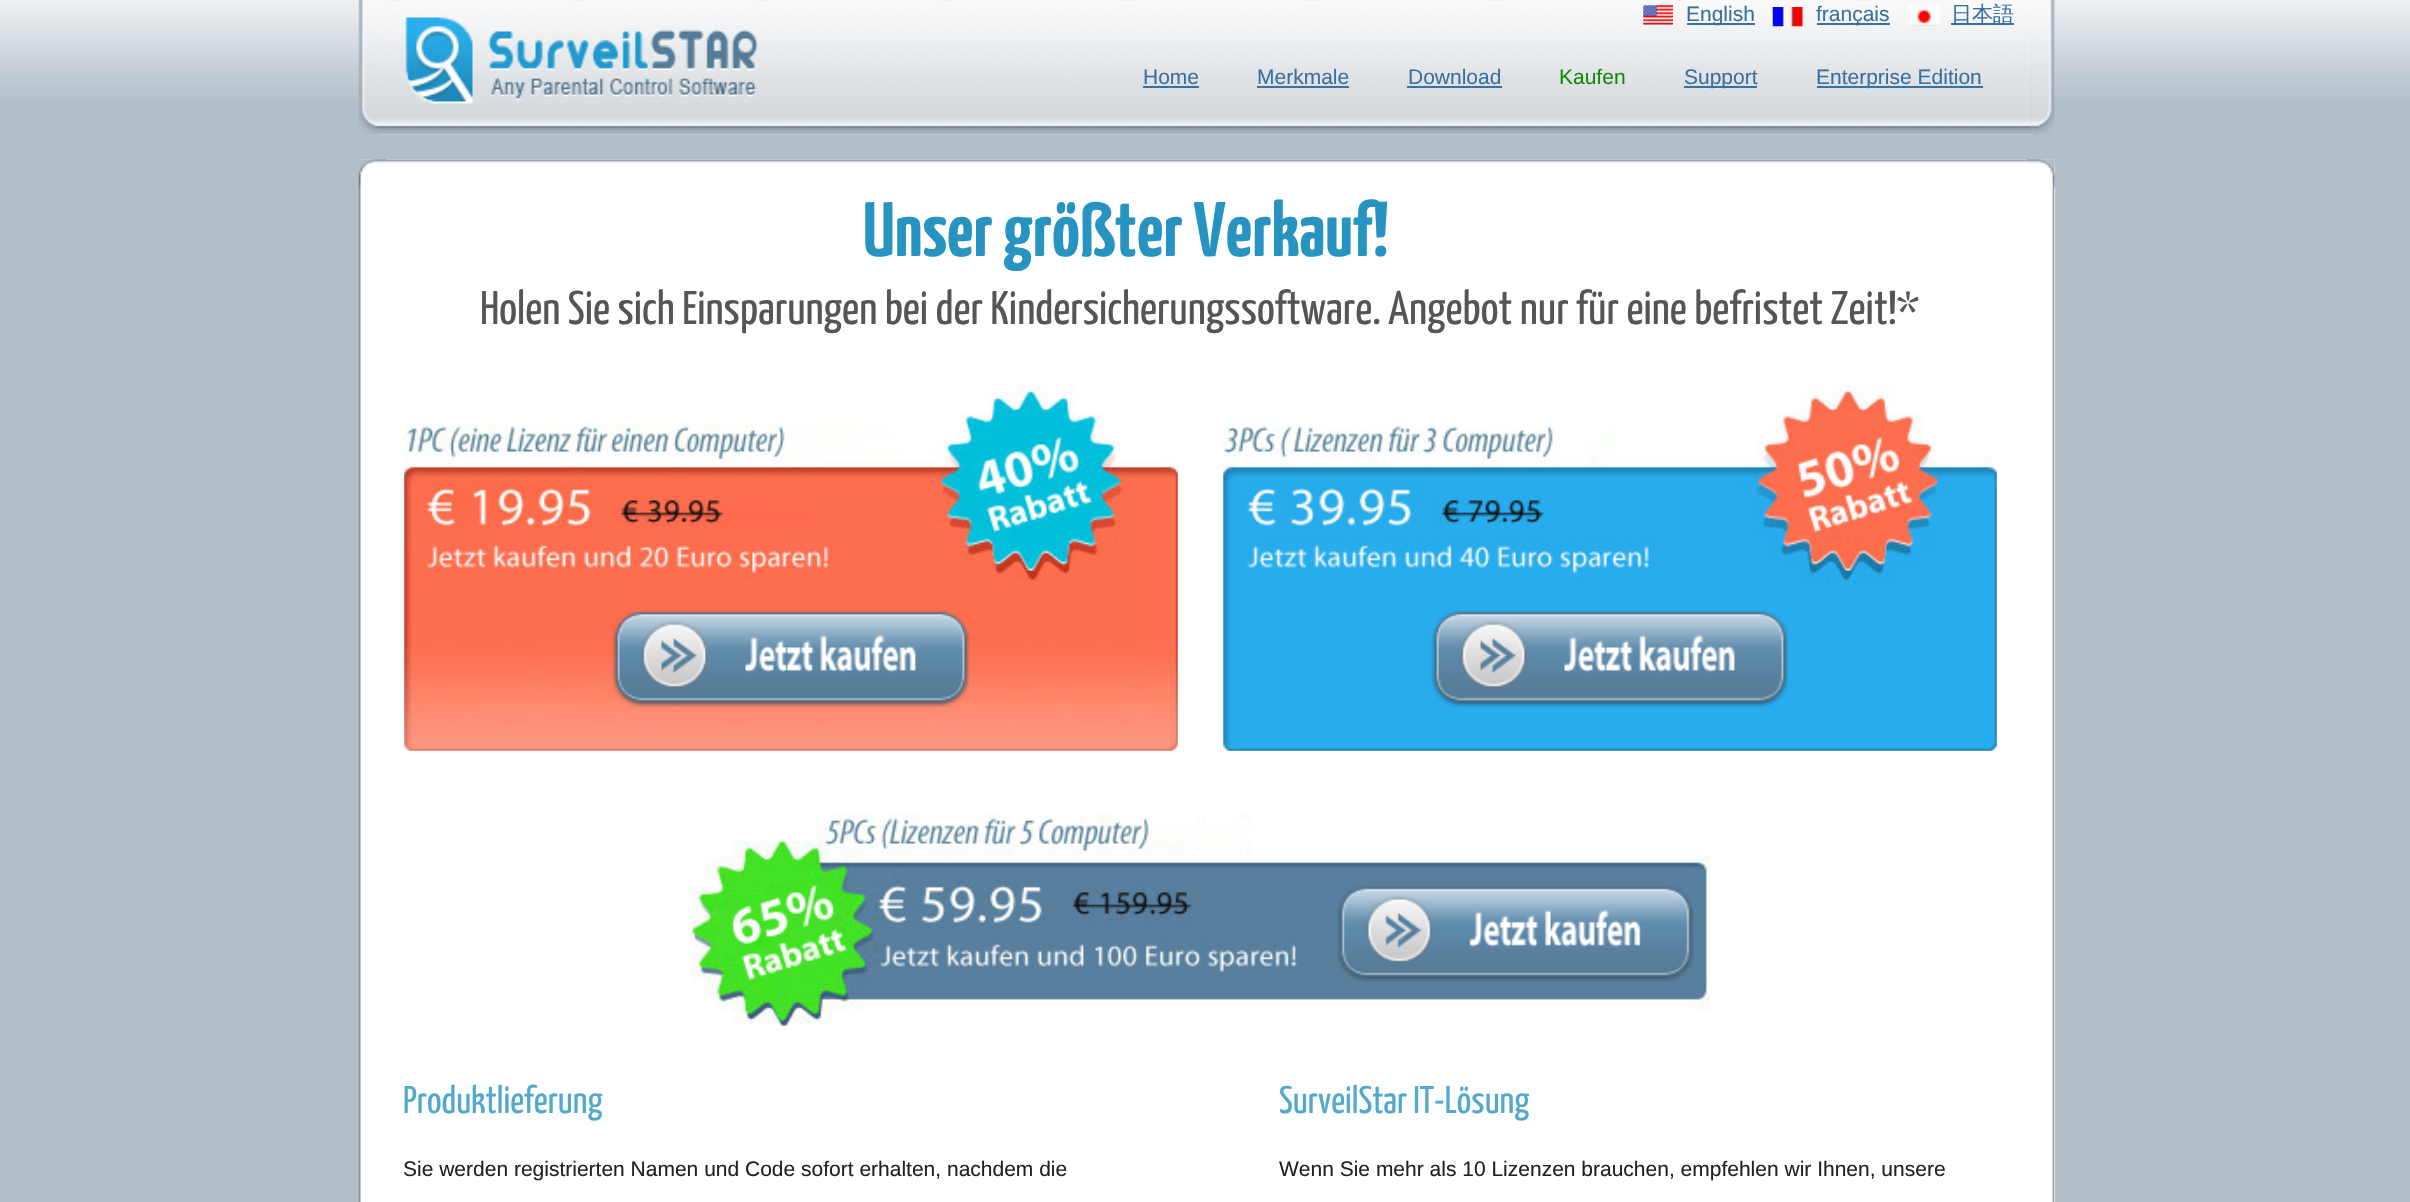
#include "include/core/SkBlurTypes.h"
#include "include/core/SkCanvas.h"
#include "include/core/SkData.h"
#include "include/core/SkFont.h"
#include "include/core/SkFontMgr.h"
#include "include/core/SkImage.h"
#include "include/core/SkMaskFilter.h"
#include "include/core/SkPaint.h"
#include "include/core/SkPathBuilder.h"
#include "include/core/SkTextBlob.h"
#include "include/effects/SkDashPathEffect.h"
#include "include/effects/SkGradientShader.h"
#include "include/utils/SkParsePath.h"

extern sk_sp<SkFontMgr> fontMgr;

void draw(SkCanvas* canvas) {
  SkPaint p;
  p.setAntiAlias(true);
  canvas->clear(SkColorSetRGB(178, 190, 200));
  canvas->drawImageRect(SkImages::DeferredFromEncodedData(SkData::MakeFromFileName("images/1.png")), SkRect::MakeLTRB(0, 0, 2410, 100), SkSamplingOptions());
  canvas->drawImageRect(SkImages::DeferredFromEncodedData(SkData::MakeFromFileName("images/2.png")), SkRect::MakeLTRB(358, 0, 378, 135), SkSamplingOptions());
  canvas->drawImageRect(SkImages::DeferredFromEncodedData(SkData::MakeFromFileName("images/3.png")), SkRect::MakeLTRB(378, 0, 2032, 135), SkSamplingOptions());
  canvas->drawImageRect(SkImages::DeferredFromEncodedData(SkData::MakeFromFileName("images/4.png")), SkRect::MakeLTRB(1643, 5, 1673, 25), SkSamplingOptions());
  p.setColor(SkColorSetRGB(59, 112, 157));
  canvas->drawRect(SkRect::MakeLTRB(1687, 23, 1755, 25), p);
  canvas->drawImageRect(SkImages::DeferredFromEncodedData(SkData::MakeFromFileName("images/5.png")), SkRect::MakeLTRB(1772, 7, 1803, 27), SkSamplingOptions());
  canvas->drawRect(SkRect::MakeLTRB(1817, 23, 1890, 25), p);
  canvas->drawImageRect(SkImages::DeferredFromEncodedData(SkData::MakeFromFileName("images/6.png")), SkRect::MakeLTRB(1907, 5, 1941, 26), SkSamplingOptions());
  canvas->drawRect(SkRect::MakeLTRB(1951, 23, 2014, 25), p);
  canvas->drawImageRect(SkImages::DeferredFromEncodedData(SkData::MakeFromFileName("images/7.png")), SkRect::MakeLTRB(405, 17, 759, 104), SkSamplingOptions());
  canvas->drawRect(SkRect::MakeLTRB(1143, 86, 1199, 88), p);
  canvas->drawRect(SkRect::MakeLTRB(1257, 86, 1349, 88), p);
  canvas->drawRect(SkRect::MakeLTRB(1407, 86, 1502, 88), p);
  canvas->drawRect(SkRect::MakeLTRB(1684, 86, 1757, 88), p);
  canvas->drawRect(SkRect::MakeLTRB(1817, 86, 1983, 88), p);
  canvas->drawImageRect(SkImages::DeferredFromEncodedData(SkData::MakeFromFileName("images/8.png")), SkRect::MakeLTRB(2031, 0, 2055, 135), SkSamplingOptions());
  p.setColor(SK_ColorWHITE);
  canvas->drawRect(SkRect::MakeLTRB(359, 159, 2055, 1202), p);
  canvas->drawImageRect(SkImages::DeferredFromEncodedData(SkData::MakeFromFileName("images/9.png")), SkRect::MakeLTRB(358, 159, 2055, 181), SkSamplingOptions());
  canvas->drawImageRect(SkImages::DeferredFromEncodedData(SkData::MakeFromFileName("images/10.png")), SkRect::MakeLTRB(358, 159, 387, 1202), SkSamplingOptions());
  canvas->drawImageRect(SkImages::DeferredFromEncodedData(SkData::MakeFromFileName("images/11.png")), SkRect::MakeLTRB(358, 159, 387, 187), SkSamplingOptions());
  canvas->drawImageRect(SkImages::DeferredFromEncodedData(SkData::MakeFromFileName("images/12.png")), SkRect::MakeLTRB(2026, 159, 2055, 1202), SkSamplingOptions());
  canvas->drawImageRect(SkImages::DeferredFromEncodedData(SkData::MakeFromFileName("images/13.png")), SkRect::MakeLTRB(2026, 159, 2055, 188), SkSamplingOptions());
  canvas->drawImageRect(SkImages::DeferredFromEncodedData(SkData::MakeFromFileName("images/14.png")), SkRect::MakeLTRB(404, 385, 1178, 751), SkSamplingOptions());
  canvas->drawImageRect(SkImages::DeferredFromEncodedData(SkData::MakeFromFileName("images/15.png")), SkRect::MakeLTRB(612, 610, 970, 707), SkSamplingOptions());
  canvas->drawImageRect(SkImages::DeferredFromEncodedData(SkData::MakeFromFileName("images/16.png")), SkRect::MakeLTRB(1223, 385, 1997, 751), SkSamplingOptions());
  canvas->drawImageRect(SkImages::DeferredFromEncodedData(SkData::MakeFromFileName("images/17.png")), SkRect::MakeLTRB(1431, 610, 1789, 707), SkSamplingOptions());
  canvas->drawImageRect(SkImages::DeferredFromEncodedData(SkData::MakeFromFileName("images/18.png")), SkRect::MakeLTRB(691, 814, 1710, 1031), SkSamplingOptions());
  canvas->drawImageRect(SkImages::DeferredFromEncodedData(SkData::MakeFromFileName("images/19.png")), SkRect::MakeLTRB(1337, 885, 1694, 982), SkSamplingOptions());
  SkFont font1(fontMgr->matchFamilyStyle("Liberation Sans", SkFontStyle::Normal()), 21);
  font1.setSubpixel(true);
  p.setColor(SkColorSetRGB(59, 112, 157));
  canvas->drawString("English", 1686, 21, font1, p);
  canvas->drawString("français", 1816, 21, font1, p);
  SkFont font2(fontMgr->matchFamilyStyle("WenQuanYi Zen Hei", SkFontStyle(500, SkFontStyle::kNormal_Width, SkFontStyle::kUpright_Slant)), 21);
  font2.setSubpixel(true);
  canvas->drawString("日本語", 1951, 21, font2, p);
  canvas->drawString("Home", 1143, 84, font1, p);
  canvas->drawString("Merkmale", 1257, 84, font1, p);
  canvas->drawString("Download", 1408, 84, font1, p);
  p.setColor(SkColorSetRGB(20, 138, 11));
  canvas->drawString("Kaufen", 1559, 84, font1, p);
  p.setColor(SkColorSetRGB(59, 112, 157));
  canvas->drawString("Support", 1684, 84, font1, p);
  canvas->drawString("Enterprise Edition", 1816, 84, font1, p);
  SkFont font3(fontMgr->matchFamilyStyle("Yanone Kaffeesatz", SkFontStyle::Bold()), 77);
  font3.setSubpixel(true);
  p.setColor(SkColorSetRGB(39, 147, 193));
  canvas->drawString("Unser größter Verkauf!", 863, 256, font3, p);
  SkFont font4(fontMgr->matchFamilyStyle("Yanone Kaffeesatz", SkFontStyle::Normal()), 47.25f);
  font4.setSubpixel(true);
  p.setColor(SkColorSetRGB(85, 85, 85));
  canvas->drawString("Holen Sie sich Einsparungen bei der Kindersicherungssoftware. Angebot nur für eine befristet Zeit!*", 480, 324, font4, p);
  SkFont font5(fontMgr->matchFamilyStyle("Yanone Kaffeesatz", SkFontStyle::Normal()), 38.5f);
  font5.setSubpixel(true);
  p.setColor(SkColorSetRGB(82, 169, 205));
  canvas->drawString("Produktlieferung", 403, 1113, font5, p);
  p.setColor(SkColorSetRGB(31, 34, 36));
  canvas->drawString("Sie werden registrierten Namen und Code sofort erhalten, nachdem die", 403, 1176, font1, p);
  p.setColor(SkColorSetRGB(82, 169, 205));
  canvas->drawString("SurveilStar IT-Lösung", 1279, 1113, font5, p);
  p.setColor(SkColorSetRGB(31, 34, 36));
  canvas->drawString("Wenn Sie mehr als 10 Lizenzen brauchen, empfehlen wir Ihnen, unsere", 1279, 1176, font1, p);
}
